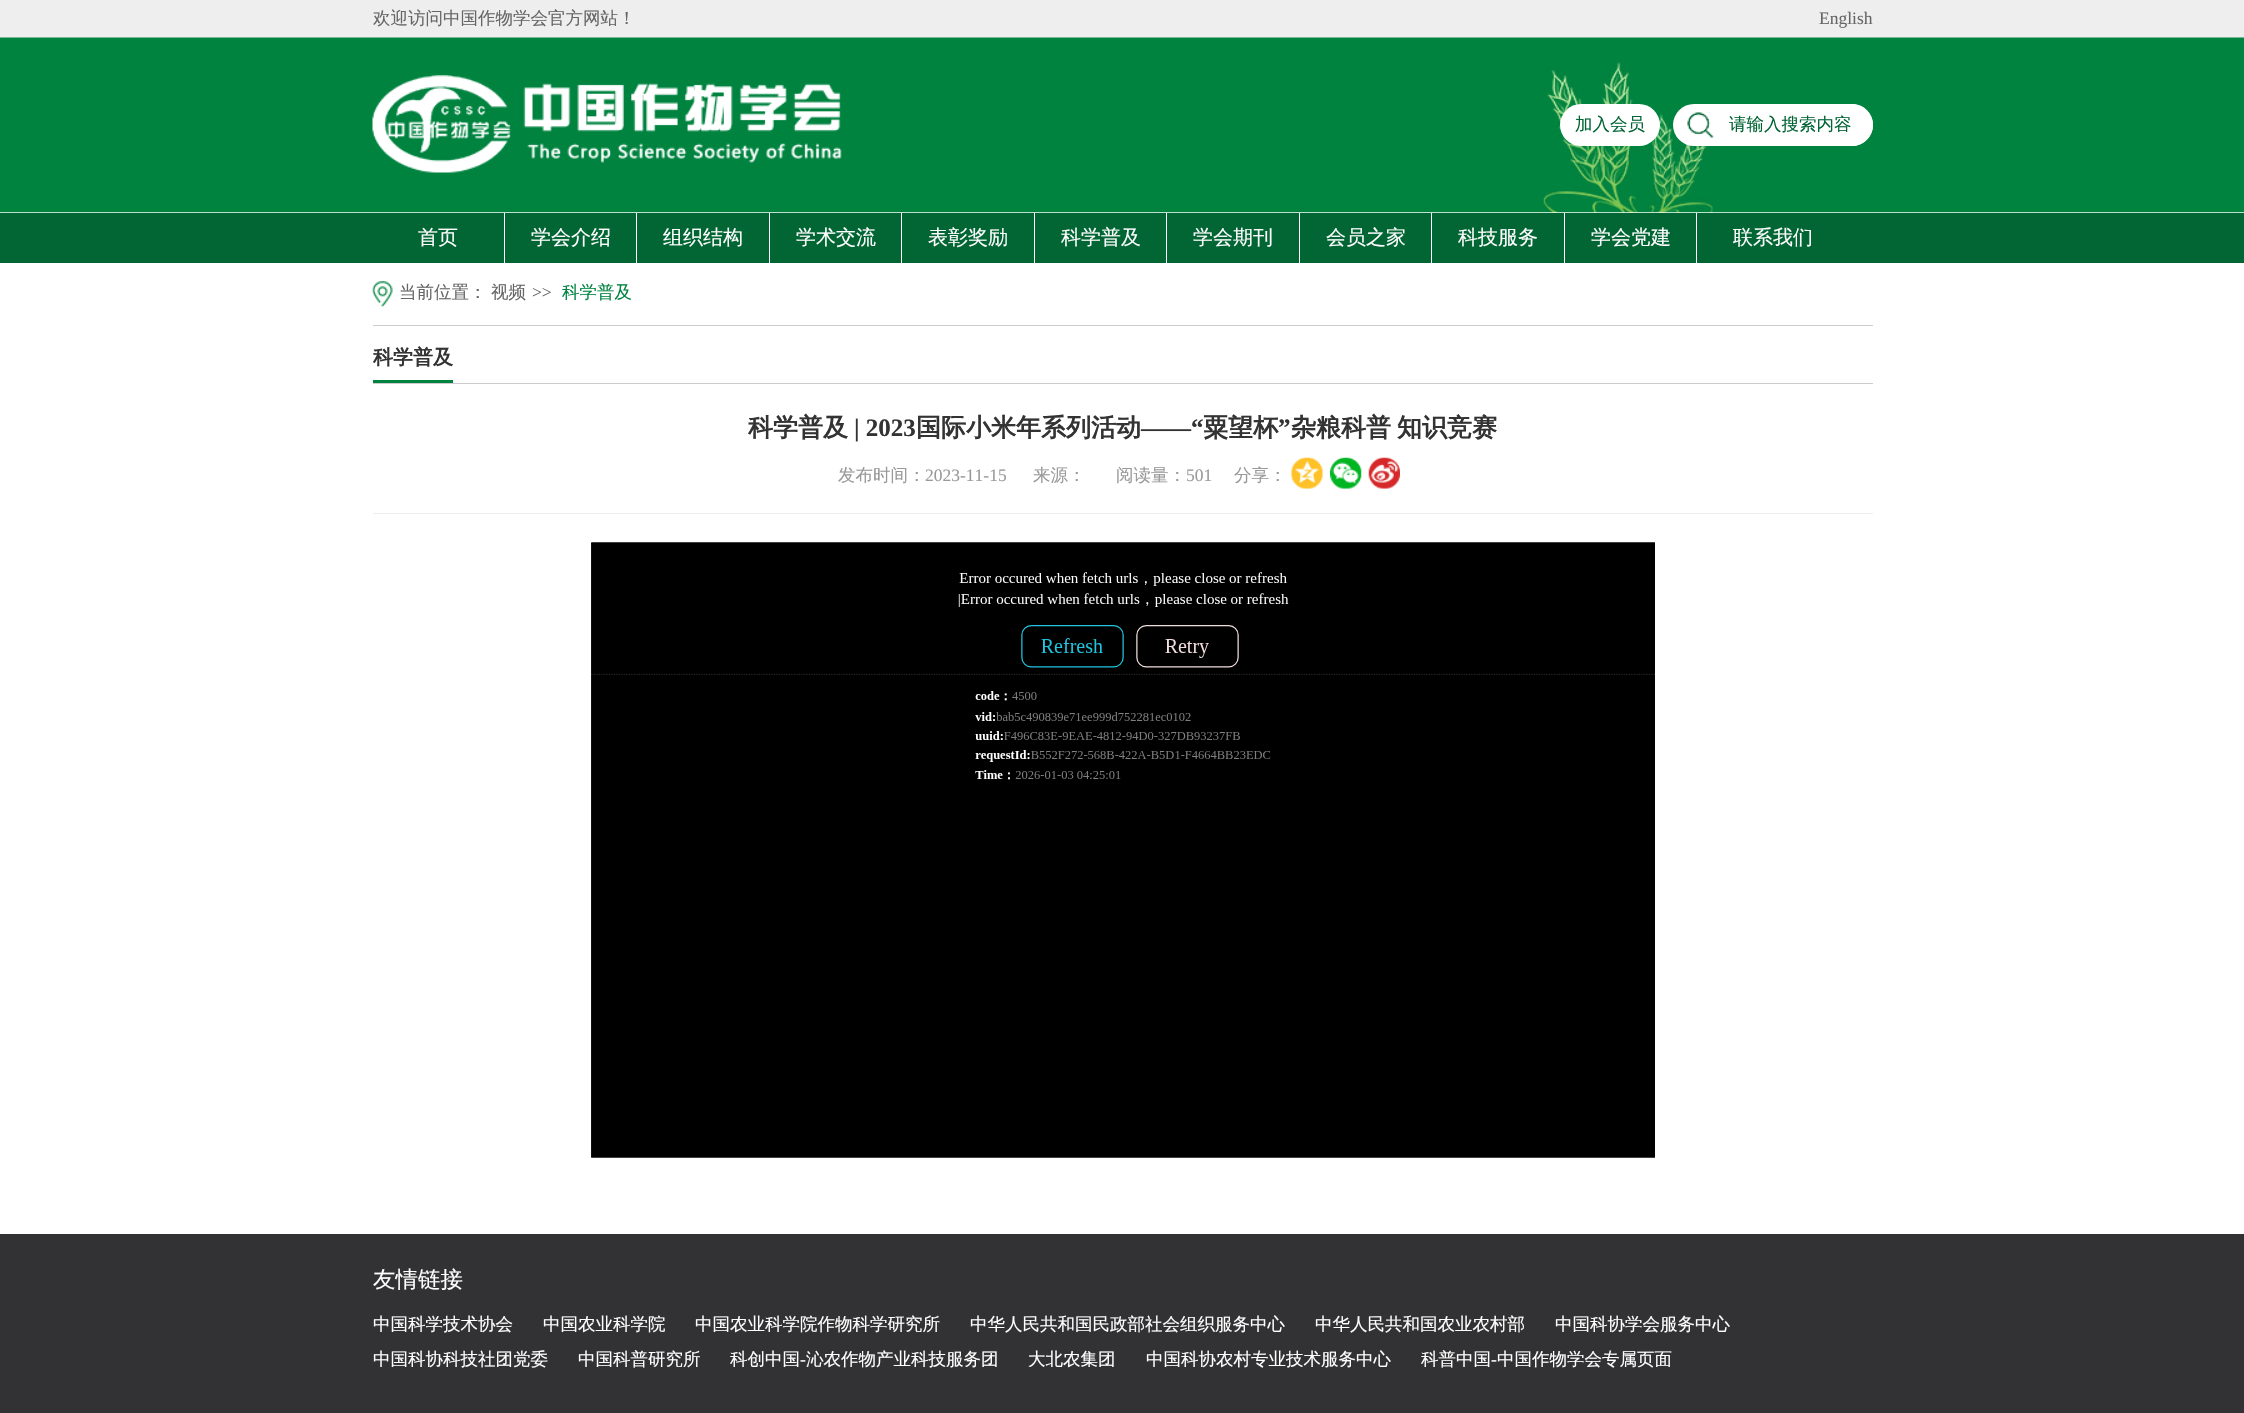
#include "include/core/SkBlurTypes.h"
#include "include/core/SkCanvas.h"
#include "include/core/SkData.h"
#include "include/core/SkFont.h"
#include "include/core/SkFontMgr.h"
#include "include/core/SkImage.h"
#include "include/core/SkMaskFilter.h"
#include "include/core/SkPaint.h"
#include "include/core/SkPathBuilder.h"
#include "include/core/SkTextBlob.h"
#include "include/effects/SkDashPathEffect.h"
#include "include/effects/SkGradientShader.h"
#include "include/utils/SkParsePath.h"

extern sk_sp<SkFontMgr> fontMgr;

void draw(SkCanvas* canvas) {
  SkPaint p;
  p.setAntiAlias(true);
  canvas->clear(SK_ColorWHITE);
  p.setColor(SkColorSetRGB(238, 238, 238));
  canvas->drawRect(SkRect::MakeLTRB(0, 0, 2244, 38), p);
  canvas->drawImageRect(SkImages::DeferredFromEncodedData(SkData::MakeFromFileName("images/1.png")), SkRect::MakeLTRB(0, 37, 2244, 213), SkSamplingOptions());
  canvas->drawImageRect(SkImages::DeferredFromEncodedData(SkData::MakeFromFileName("images/2.png")), SkRect::MakeLTRB(372, 75, 842, 173), SkSamplingOptions());
  p.setColor(SK_ColorWHITE);
  canvas->drawRoundRect(SkRect::MakeLTRB(1560, 104, 1660, 146), 21, 21, p);
  canvas->drawRoundRect(SkRect::MakeLTRB(1673, 104, 1873, 146), 21, 21, p);
  canvas->drawImageRect(SkImages::DeferredFromEncodedData(SkData::MakeFromFileName("images/3.png")), SkRect::MakeLTRB(1687, 112, 1714, 138), SkSamplingOptions());
  canvas->drawPath(SkPathBuilder().moveTo(1729, 104).lineTo(1852, 104).cubicTo(1863.5f, 104, 1873, 113.5f, 1873, 125).cubicTo(1873, 136.5f, 1863.5f, 146, 1852, 146).lineTo(1729, 146).close().detach(), p);
  p.setColor(SkColorSetRGB(1, 101, 52));
  canvas->drawRect(SkRect::MakeLTRB(0, 213, 2244, 263), p);
  p.setColor(SK_ColorWHITE);
  canvas->drawRect(SkRect::MakeLTRB(504, 213, 505, 263), p);
  canvas->drawRect(SkRect::MakeLTRB(636, 213, 637, 263), p);
  canvas->drawRect(SkRect::MakeLTRB(769, 213, 770, 263), p);
  canvas->drawRect(SkRect::MakeLTRB(901, 213, 902, 263), p);
  canvas->drawRect(SkRect::MakeLTRB(1034, 213, 1035, 263), p);
  canvas->drawRect(SkRect::MakeLTRB(1166, 213, 1167, 263), p);
  canvas->drawRect(SkRect::MakeLTRB(1299, 213, 1300, 263), p);
  canvas->drawRect(SkRect::MakeLTRB(1431, 213, 1432, 263), p);
  canvas->drawRect(SkRect::MakeLTRB(1564, 213, 1565, 263), p);
  canvas->drawRect(SkRect::MakeLTRB(1696, 213, 1697, 263), p);
  canvas->drawImageRect(SkImages::DeferredFromEncodedData(SkData::MakeFromFileName("images/4.png")), SkRect::MakeLTRB(372, 281, 393, 307), SkSamplingOptions());
  p.setColor(SkColorSetRGB(204, 204, 204));
  canvas->drawRect(SkRect::MakeLTRB(373, 325, 1873, 326), p);
  canvas->drawRect(SkRect::MakeLTRB(373, 383, 1873, 384), p);
  p.setColor(SkColorSetRGB(0, 131, 63));
  canvas->drawRect(SkRect::MakeLTRB(373, 380, 453, 383), p);
  p.setColor(SkColorSetRGB(238, 238, 238));
  canvas->drawRect(SkRect::MakeLTRB(373, 513, 1873, 514), p);
  canvas->drawImageRect(SkImages::DeferredFromEncodedData(SkData::MakeFromFileName("images/5.png")), SkRect::MakeLTRB(1291, 457, 1323, 489), SkSamplingOptions());
  canvas->drawImageRect(SkImages::DeferredFromEncodedData(SkData::MakeFromFileName("images/6.png")), SkRect::MakeLTRB(1330, 457, 1362, 489), SkSamplingOptions());
  canvas->drawImageRect(SkImages::DeferredFromEncodedData(SkData::MakeFromFileName("images/7.png")), SkRect::MakeLTRB(1368, 457, 1400, 489), SkSamplingOptions());
  canvas->drawImageRect(SkImages::DeferredFromEncodedData(SkData::MakeFromFileName("images/8.png")), SkRect::MakeLTRB(591, 542, 1655, 1158), SkSamplingOptions());
  p.setColor(SkColorSetRGB(50, 50, 52));
  canvas->drawRect(SkRect::MakeLTRB(0, 1234, 2244, 1413), p);
  SkFont font1(fontMgr->matchFamilyStyle("WenQuanYi Zen Hei", SkFontStyle(500, SkFontStyle::kNormal_Width, SkFontStyle::kUpright_Slant)), 17.5f);
  font1.setSubpixel(true);
  p.setColor(SkColorSetRGB(102, 102, 102));
  canvas->drawString("欢迎访问中国作物学会官方网站！", 373, 24, font1, p);
  SkFont font2(fontMgr->matchFamilyStyle("Liberation Serif", SkFontStyle::Normal()), 17.5f);
  font2.setSubpixel(true);
  canvas->drawString("English", 1819, 24, font2, p);
  p.setColor(SkColorSetRGB(1, 100, 52));
  canvas->drawString("加入会员", 1575, 130, font1, p);
  canvas->drawString("请输入搜索内容", 1729, 130, font1, p);
  SkFont font3(fontMgr->matchFamilyStyle("WenQuanYi Zen Hei", SkFontStyle(500, SkFontStyle::kNormal_Width, SkFontStyle::kUpright_Slant)), 20);
  font3.setSubpixel(true);
  p.setColor(SK_ColorWHITE);
  canvas->drawString("首页", 418, 244, font3, p);
  canvas->drawString("学会介绍", 531, 244, font3, p);
  canvas->drawString("组织结构", 663, 244, font3, p);
  canvas->drawString("学术交流", 796, 244, font3, p);
  canvas->drawString("表彰奖励", 928, 244, font3, p);
  canvas->drawString("科学普及", 1061, 244, font3, p);
  canvas->drawString("学会期刊", 1193, 244, font3, p);
  canvas->drawString("会员之家", 1326, 244, font3, p);
  canvas->drawString("科技服务", 1458, 244, font3, p);
  canvas->drawString("学会党建", 1591, 244, font3, p);
  canvas->drawString("联系我们", 1733, 244, font3, p);
  p.setColor(SkColorSetRGB(102, 102, 102));
  canvas->drawString("当前位置：", 399, 298, font1, p);
  canvas->drawString("视频", 491, 298, font1, p);
  canvas->drawString(">>", 532, 298, font2, p);
  p.setColor(SkColorSetRGB(0, 131, 63));
  canvas->drawString("科学普及", 562, 298, font1, p);
  SkFont font4(fontMgr->matchFamilyStyle("WenQuanYi Zen Hei", SkFontStyle::Bold()), 20);
  font4.setSubpixel(true);
  p.setColor(SkColorSetRGB(51, 51, 51));
  canvas->drawString("科学普及", 373, 364, font4, p);
  SkFont font5(fontMgr->matchFamilyStyle("WenQuanYi Zen Hei", SkFontStyle::Bold()), 25);
  font5.setSubpixel(true);
  canvas->drawString("科学普及", 748, 436, font5, p);
  SkFont font6(fontMgr->matchFamilyStyle("Liberation Serif", SkFontStyle::Bold()), 25);
  font6.setSubpixel(true);
  canvas->drawString("| 2023", 854, 436, font6, p);
  canvas->drawString("国际小米年系列活动", 916, 436, font5, p);
  canvas->drawString("——“", 1141, 436, font6, p);
  canvas->drawString("粟望杯", 1203, 436, font5, p);
  canvas->drawString("”", 1278, 436, font6, p);
  canvas->drawString("杂粮科普", 1291, 436, font5, p);
  canvas->drawString("知识竞赛", 1397, 436, font5, p);
  p.setColor(SkColorSetRGB(153, 153, 153));
  canvas->drawString("发布时间：", 838, 481, font1, p);
  canvas->drawString("2023-11-15", 925, 481, font2, p);
  canvas->drawString("来源：", 1033, 481, font1, p);
  canvas->drawString("阅读量：", 1116, 481, font1, p);
  canvas->drawString("501", 1186, 481, font2, p);
  canvas->drawString("分享：", 1234, 481, font1, p);
  SkFont font7(fontMgr->matchFamilyStyle("WenQuanYi Zen Hei", SkFontStyle(500, SkFontStyle::kNormal_Width, SkFontStyle::kUpright_Slant)), 22.5f);
  font7.setSubpixel(true);
  p.setColor(SK_ColorWHITE);
  canvas->drawString("友情链接", 373, 1287, font7, p);
  canvas->drawString("中国科学技术协会", 373, 1330, font1, p);
  canvas->drawString("中国农业科学院", 543, 1330, font1, p);
  canvas->drawString("中国农业科学院作物科学研究所", 695, 1330, font1, p);
  canvas->drawString("中华人民共和国民政部社会组织服务中心", 970, 1330, font1, p);
  canvas->drawString("中华人民共和国农业农村部", 1315, 1330, font1, p);
  canvas->drawString("中国科协学会服务中心", 1555, 1330, font1, p);
  canvas->drawString("中国科协科技社团党委", 373, 1365, font1, p);
  canvas->drawString("中国科普研究所", 578, 1365, font1, p);
  canvas->drawString("科创中国", 730, 1365, font1, p);
  canvas->drawString("-", 800, 1365, font2, p);
  canvas->drawString("沁农作物产业科技服务团", 806, 1365, font1, p);
  canvas->drawString("大北农集团", 1028, 1365, font1, p);
  canvas->drawString("中国科协农村专业技术服务中心", 1146, 1365, font1, p);
  canvas->drawString("科普中国", 1421, 1365, font1, p);
  canvas->drawString("-", 1491, 1365, font2, p);
  canvas->drawString("中国作物学会专属页面", 1497, 1365, font1, p);
}
